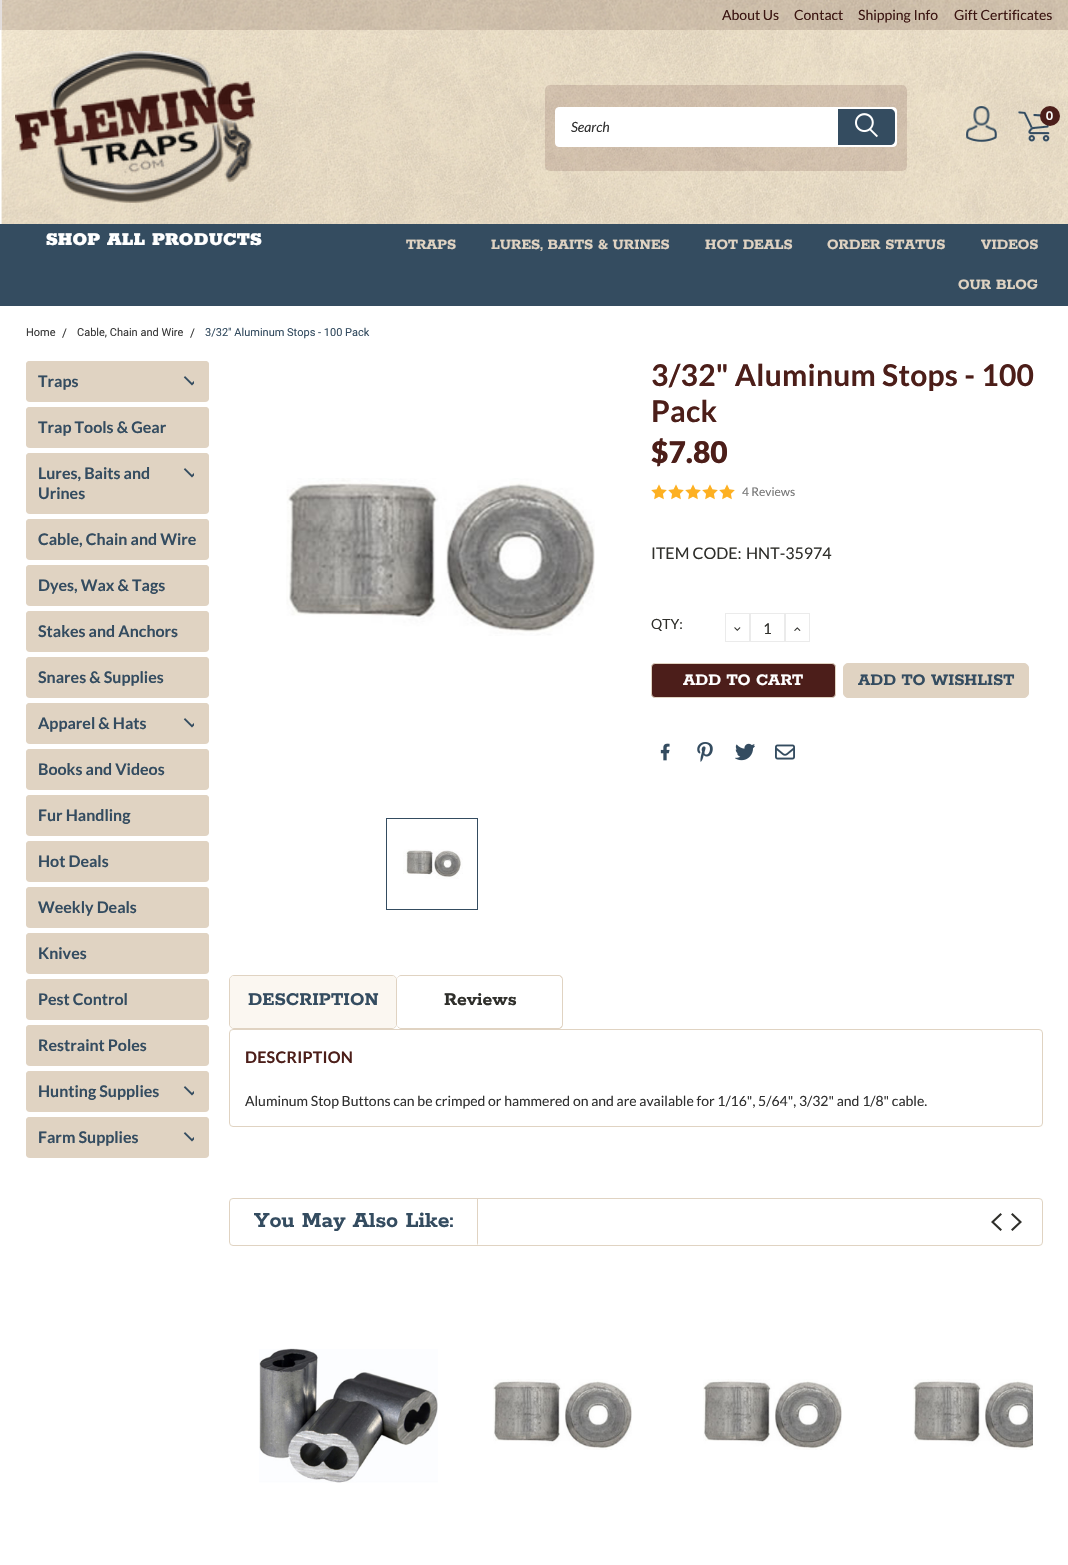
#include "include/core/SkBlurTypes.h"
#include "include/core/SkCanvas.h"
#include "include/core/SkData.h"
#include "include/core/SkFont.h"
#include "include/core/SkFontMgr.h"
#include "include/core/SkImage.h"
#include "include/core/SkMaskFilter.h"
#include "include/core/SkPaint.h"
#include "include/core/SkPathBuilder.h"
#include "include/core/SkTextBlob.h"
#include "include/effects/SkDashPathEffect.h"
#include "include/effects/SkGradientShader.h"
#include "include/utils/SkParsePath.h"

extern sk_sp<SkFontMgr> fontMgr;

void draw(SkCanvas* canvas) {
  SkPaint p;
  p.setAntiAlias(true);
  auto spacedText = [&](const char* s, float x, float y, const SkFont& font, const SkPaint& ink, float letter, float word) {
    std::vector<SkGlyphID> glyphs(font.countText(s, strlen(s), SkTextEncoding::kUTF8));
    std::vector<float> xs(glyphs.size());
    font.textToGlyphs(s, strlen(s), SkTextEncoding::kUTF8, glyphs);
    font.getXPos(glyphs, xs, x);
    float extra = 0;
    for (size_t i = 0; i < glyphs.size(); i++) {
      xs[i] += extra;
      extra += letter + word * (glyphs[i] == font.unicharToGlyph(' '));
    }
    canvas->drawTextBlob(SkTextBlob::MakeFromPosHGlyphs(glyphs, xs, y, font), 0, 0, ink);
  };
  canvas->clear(SK_ColorWHITE);
  canvas->drawImageRect(SkImages::DeferredFromEncodedData(SkData::MakeFromFileName("images/1.png")), SkRect::MakeLTRB(2, 0, 1068, 30), SkSamplingOptions());
  p.setColor(SkColorSetARGB(36, 59, 21, 17));
  canvas->drawRect(SkRect::MakeLTRB(0, 0, 1068, 30), p);
  canvas->drawImageRect(SkImages::DeferredFromEncodedData(SkData::MakeFromFileName("images/2.png")), SkRect::MakeLTRB(1, 30, 1068, 224), SkSamplingOptions());
  canvas->drawImageRect(SkImages::DeferredFromEncodedData(SkData::MakeFromFileName("images/3.png")), SkRect::MakeLTRB(15, 51, 255, 203), SkSamplingOptions());
  canvas->drawImageRect(SkImages::DeferredFromEncodedData(SkData::MakeFromFileName("images/4.png")), SkRect::MakeLTRB(966, 106, 997, 142), SkSamplingOptions());
  canvas->drawImageRect(SkImages::DeferredFromEncodedData(SkData::MakeFromFileName("images/5.png")), SkRect::MakeLTRB(1018, 111, 1050, 142), SkSamplingOptions());
  p.setColor(SkColorSetRGB(76, 30, 26));
  canvas->drawCircle(1050, 116, 10, p);
  p.setColor(SkColorSetARGB(36, 76, 30, 25));
  canvas->drawRoundRect(SkRect::MakeLTRB(545, 85, 907, 171), 5, 5, p);
  p.setColor(SK_ColorWHITE);
  canvas->drawRoundRect(SkRect::MakeLTRB(555.5f, 107.5f, 896.5f, 146.5f), 3.5f, 3.5f, p);
  p.setStyle(SkPaint::kStroke_Style);
  p.setStrokeWidth(1);
  canvas->drawRoundRect(SkRect::MakeLTRB(555.5f, 107.5f, 896.5f, 146.5f), 3.5f, 3.5f, p);
  p.setStyle(SkPaint::kFill_Style);
  p.setColor(SkColorSetRGB(52, 76, 96));
  canvas->drawPath(SkPathBuilder().moveTo(838, 109).lineTo(890, 109).cubicTo(893, 109, 895, 111, 895, 114).lineTo(895, 140).cubicTo(895, 143, 893, 145, 890, 145).lineTo(838, 145).close().detach(), p);
  canvas->drawImageRect(SkImages::DeferredFromEncodedData(SkData::MakeFromFileName("images/6.png")), SkRect::MakeLTRB(855, 113, 878, 138), SkSamplingOptions());
  canvas->drawRect(SkRect::MakeLTRB(0, 224, 1068, 306), p);
  p.setColor(SkColorSetRGB(224, 211, 194));
  canvas->drawRoundRect(SkRect::MakeLTRB(26, 361, 209, 402), 4, 4, p);
  canvas->drawRoundRect(SkRect::MakeLTRB(26, 361, 209, 401), 4, 4, p);
  canvas->drawImageRect(SkImages::DeferredFromEncodedData(SkData::MakeFromFileName("images/7.png")), SkRect::MakeLTRB(183, 376, 194, 386), SkSamplingOptions());
  canvas->drawRoundRect(SkRect::MakeLTRB(26, 407, 209, 448), 4, 4, p);
  canvas->drawRoundRect(SkRect::MakeLTRB(26, 407, 209, 447), 4, 4, p);
  canvas->drawRoundRect(SkRect::MakeLTRB(26, 453, 209, 514), 4, 4, p);
  canvas->drawRoundRect(SkRect::MakeLTRB(26, 453, 209, 513), 4, 4, p);
  canvas->drawImageRect(SkImages::DeferredFromEncodedData(SkData::MakeFromFileName("images/7.png")), SkRect::MakeLTRB(183, 468, 194, 478), SkSamplingOptions());
  canvas->drawRoundRect(SkRect::MakeLTRB(26, 519, 209, 560), 4, 4, p);
  canvas->drawRoundRect(SkRect::MakeLTRB(26, 519, 209, 559), 4, 4, p);
  canvas->drawRoundRect(SkRect::MakeLTRB(26, 565, 209, 606), 4, 4, p);
  canvas->drawRoundRect(SkRect::MakeLTRB(26, 565, 209, 605), 4, 4, p);
  canvas->drawRoundRect(SkRect::MakeLTRB(26, 611, 209, 652), 4, 4, p);
  canvas->drawRoundRect(SkRect::MakeLTRB(26, 611, 209, 651), 4, 4, p);
  canvas->drawRoundRect(SkRect::MakeLTRB(26, 657, 209, 698), 4, 4, p);
  canvas->drawRoundRect(SkRect::MakeLTRB(26, 657, 209, 697), 4, 4, p);
  canvas->drawRoundRect(SkRect::MakeLTRB(26, 703, 209, 744), 4, 4, p);
  canvas->drawRoundRect(SkRect::MakeLTRB(26, 703, 209, 743), 4, 4, p);
  canvas->drawImageRect(SkImages::DeferredFromEncodedData(SkData::MakeFromFileName("images/7.png")), SkRect::MakeLTRB(183, 718, 194, 728), SkSamplingOptions());
  canvas->drawRoundRect(SkRect::MakeLTRB(26, 749, 209, 790), 4, 4, p);
  canvas->drawRoundRect(SkRect::MakeLTRB(26, 749, 209, 789), 4, 4, p);
  canvas->drawRoundRect(SkRect::MakeLTRB(26, 795, 209, 836), 4, 4, p);
  canvas->drawRoundRect(SkRect::MakeLTRB(26, 795, 209, 835), 4, 4, p);
  canvas->drawRoundRect(SkRect::MakeLTRB(26, 841, 209, 882), 4, 4, p);
  canvas->drawRoundRect(SkRect::MakeLTRB(26, 841, 209, 881), 4, 4, p);
  canvas->drawRoundRect(SkRect::MakeLTRB(26, 887, 209, 928), 4, 4, p);
  canvas->drawRoundRect(SkRect::MakeLTRB(26, 887, 209, 927), 4, 4, p);
  canvas->drawRoundRect(SkRect::MakeLTRB(26, 933, 209, 974), 4, 4, p);
  canvas->drawRoundRect(SkRect::MakeLTRB(26, 933, 209, 973), 4, 4, p);
  canvas->drawRoundRect(SkRect::MakeLTRB(26, 979, 209, 1020), 4, 4, p);
  canvas->drawRoundRect(SkRect::MakeLTRB(26, 979, 209, 1019), 4, 4, p);
  canvas->drawRoundRect(SkRect::MakeLTRB(26, 1025, 209, 1066), 4, 4, p);
  canvas->drawRoundRect(SkRect::MakeLTRB(26, 1025, 209, 1065), 4, 4, p);
  canvas->drawRoundRect(SkRect::MakeLTRB(26, 1071, 209, 1112), 4, 4, p);
  canvas->drawRoundRect(SkRect::MakeLTRB(26, 1071, 209, 1111), 4, 4, p);
  canvas->drawImageRect(SkImages::DeferredFromEncodedData(SkData::MakeFromFileName("images/7.png")), SkRect::MakeLTRB(183, 1086, 194, 1096), SkSamplingOptions());
  canvas->drawRoundRect(SkRect::MakeLTRB(26, 1117, 209, 1158), 4, 4, p);
  canvas->drawRoundRect(SkRect::MakeLTRB(26, 1117, 209, 1157), 4, 4, p);
  canvas->drawImageRect(SkImages::DeferredFromEncodedData(SkData::MakeFromFileName("images/7.png")), SkRect::MakeLTRB(183, 1132, 194, 1142), SkSamplingOptions());
  canvas->drawImageRect(SkImages::DeferredFromEncodedData(SkData::MakeFromFileName("images/8.png")), SkRect::MakeLTRB(286, 478, 595, 636), SkSamplingOptions());
  p.setStyle(SkPaint::kStroke_Style);
  p.setColor(SkColorSetRGB(52, 76, 96));
  canvas->drawRect(SkRect::MakeLTRB(386.5f, 818.5f, 477.5f, 909.5f), p);
  canvas->drawImageRect(SkImages::DeferredFromEncodedData(SkData::MakeFromFileName("images/9.png")), SkRect::MakeLTRB(403, 849, 463, 879), SkSamplingOptions());
  canvas->drawImageRect(SkImages::DeferredFromEncodedData(SkData::MakeFromFileName("images/10.png")), SkRect::MakeLTRB(651, 484, 667, 500), SkSamplingOptions());
  canvas->drawImageRect(SkImages::DeferredFromEncodedData(SkData::MakeFromFileName("images/10.png")), SkRect::MakeLTRB(668, 484, 684, 500), SkSamplingOptions());
  canvas->drawImageRect(SkImages::DeferredFromEncodedData(SkData::MakeFromFileName("images/10.png")), SkRect::MakeLTRB(685, 484, 701, 500), SkSamplingOptions());
  canvas->drawImageRect(SkImages::DeferredFromEncodedData(SkData::MakeFromFileName("images/10.png")), SkRect::MakeLTRB(702, 484, 718, 500), SkSamplingOptions());
  canvas->drawImageRect(SkImages::DeferredFromEncodedData(SkData::MakeFromFileName("images/10.png")), SkRect::MakeLTRB(719, 484, 735, 500), SkSamplingOptions());
  p.setColor(SkColorSetRGB(235, 235, 235));
  canvas->drawRect(SkRect::MakeLTRB(725.5f, 613.5f, 749.5f, 641.5f), p);
  canvas->drawImageRect(SkImages::DeferredFromEncodedData(SkData::MakeFromFileName("images/11.png")), SkRect::MakeLTRB(734, 627, 741, 631), SkSamplingOptions());
  canvas->drawRect(SkRect::MakeLTRB(750.5f, 613.5f, 784.5f, 641.5f), p);
  canvas->drawRect(SkRect::MakeLTRB(785.5f, 613.5f, 809.5f, 641.5f), p);
  canvas->drawImageRect(SkImages::DeferredFromEncodedData(SkData::MakeFromFileName("images/12.png")), SkRect::MakeLTRB(794, 627, 801, 631), SkSamplingOptions());
  p.setStyle(SkPaint::kFill_Style);
  p.setColor(SkColorSetRGB(76, 30, 26));
  canvas->drawRoundRect(SkRect::MakeLTRB(651.5f, 663.5f, 835.5f, 697.5f), 3.5f, 3.5f, p);
  p.setStyle(SkPaint::kStroke_Style);
  p.setColor(SkColorSetRGB(224, 211, 194));
  canvas->drawRoundRect(SkRect::MakeLTRB(651.5f, 663.5f, 835.5f, 697.5f), 3.5f, 3.5f, p);
  p.setStyle(SkPaint::kFill_Style);
  canvas->drawRoundRect(SkRect::MakeLTRB(843.5f, 663.5f, 1028.5f, 697.5f), 4.5f, 4.5f, p);
  p.setStyle(SkPaint::kStroke_Style);
  canvas->drawRoundRect(SkRect::MakeLTRB(843.5f, 663.5f, 1028.5f, 697.5f), 4.5f, 4.5f, p);
  canvas->drawImageRect(SkImages::DeferredFromEncodedData(SkData::MakeFromFileName("images/13.png")), SkRect::MakeLTRB(660, 743, 670, 761), SkSamplingOptions());
  canvas->drawImageRect(SkImages::DeferredFromEncodedData(SkData::MakeFromFileName("images/14.png")), SkRect::MakeLTRB(697, 742, 713, 762), SkSamplingOptions());
  canvas->drawImageRect(SkImages::DeferredFromEncodedData(SkData::MakeFromFileName("images/15.png")), SkRect::MakeLTRB(735, 743, 755, 761), SkSamplingOptions());
  canvas->drawImageRect(SkImages::DeferredFromEncodedData(SkData::MakeFromFileName("images/16.png")), SkRect::MakeLTRB(775, 744, 795, 760), SkSamplingOptions());
  canvas->drawRoundRect(SkRect::MakeLTRB(229.5f, 975.5f, 396.5f, 1028.5f), 4.5f, 4.5f, p);
  p.setStyle(SkPaint::kFill_Style);
  p.setColor(SkColorSetRGB(251, 247, 241));
  canvas->drawRoundRect(SkRect::MakeLTRB(230, 976, 396, 1028), 4, 4, p);
  p.setColor(SkColorSetRGB(224, 211, 194));
  canvas->drawPath(SkPathBuilder(SkPathFillType::kEvenOdd).moveTo(402, 975).lineTo(558, 975).cubicTo(561, 975, 563, 977, 563, 980).lineTo(563, 1024).cubicTo(563, 1027, 561, 1029, 558, 1029).lineTo(402, 1029).cubicTo(399, 1029, 397, 1027, 397, 1024).lineTo(397, 980).cubicTo(397, 977, 399, 975, 402, 975).close().moveTo(402, 976).lineTo(558, 976).cubicTo(560, 976, 562, 978, 562, 980).lineTo(562, 1024).cubicTo(562, 1026, 560, 1028, 558, 1028).lineTo(402, 1028).cubicTo(399, 1028, 397, 1026, 397, 1024).lineTo(397, 980).cubicTo(397, 978, 399, 976, 402, 976).close().detach(), p);
  p.setColor(SK_ColorWHITE);
  canvas->drawPath(SkPathBuilder().moveTo(402, 976).cubicTo(399, 976, 397, 978, 397, 980).lineTo(397, 1024).cubicTo(397, 1026, 399, 1028, 402, 1028).lineTo(558, 1028).cubicTo(560, 1028, 562, 1026, 562, 1024).lineTo(562, 980).cubicTo(562, 978, 560, 976, 558, 976).close().detach(), p);
  p.setStyle(SkPaint::kStroke_Style);
  p.setColor(SkColorSetRGB(224, 211, 194));
  canvas->drawRoundRect(SkRect::MakeLTRB(229.5f, 1029.5f, 1042.5f, 1126.5f), 3.5f, 3.5f, p);
  canvas->drawRoundRect(SkRect::MakeLTRB(229.5f, 1198.5f, 1042.5f, 1245.5f), 3.5f, 3.5f, p);
  p.setStyle(SkPaint::kFill_Style);
  canvas->drawPath(SkPathBuilder().moveTo(478, 1199).lineTo(478, 1246).lineTo(477, 1243).lineTo(477, 1199).close().detach(), p);
  p.setColor(SkColorSetRGB(47, 47, 43));
  canvas->drawPath(SkPathBuilder().moveTo(991, 1222).lineTo(1000.5f, 1213).lineTo(1002, 1214.5f).lineTo(994, 1222).lineTo(1002, 1229.5f).lineTo(1000.5f, 1231).close().moveTo(1022, 1222).lineTo(1012.5f, 1231).lineTo(1011, 1229.5f).lineTo(1019, 1222).lineTo(1011, 1214.5f).lineTo(1012.5f, 1213).close().detach(), p);
  canvas->drawImageRect(SkImages::DeferredFromEncodedData(SkData::MakeFromFileName("images/17.png")), SkRect::MakeLTRB(259, 1348, 438, 1483), SkSamplingOptions());
  canvas->drawImageRect(SkImages::DeferredFromEncodedData(SkData::MakeFromFileName("images/18.png")), SkRect::MakeLTRB(493, 1379, 632, 1450), SkSamplingOptions());
  canvas->drawImageRect(SkImages::DeferredFromEncodedData(SkData::MakeFromFileName("images/18.png")), SkRect::MakeLTRB(703, 1379, 842, 1450), SkSamplingOptions());
  canvas->drawImageRect(SkImages::DeferredFromEncodedData(SkData::MakeFromFileName("images/19.png")), SkRect::MakeLTRB(913, 1379, 1033, 1450), SkSamplingOptions());
  SkFont font1(fontMgr->matchFamilyStyle("Lato", SkFontStyle::Normal()), 14);
  font1.setSubpixel(true);
  p.setColor(SkColorSetRGB(59, 21, 17));
  canvas->drawString("About Us", 722, 20, font1, p);
  canvas->drawString("Contact", 794, 20, font1, p);
  canvas->drawString("Shipping Info", 858, 20, font1, p);
  canvas->drawString("Gift Certificates", 954, 20, font1, p);
  SkFont font2(fontMgr->matchFamilyStyle("Lato", SkFontStyle::Bold()), 12);
  font2.setSubpixel(true);
  p.setColor(SK_ColorWHITE);
  canvas->drawString("0", 1046, 120, font2, p);
  SkFont font3(fontMgr->matchFamilyStyle("Lato", SkFontStyle::Italic()), 14);
  font3.setSubpixel(true);
  p.setColor(SkColorSetRGB(49, 49, 49));
  canvas->drawString("Search", 571, 132, font3, p);
  SkFont font4(fontMgr->matchFamilyStyle("Rokkitt", SkFontStyle(900, SkFontStyle::kNormal_Width, SkFontStyle::kUpright_Slant)), 20);
  font4.setSubpixel(true);
  p.setColor(SK_ColorWHITE);
  spacedText("SHOP ALL PRODUCTS", 46, 245, font4, p, 0.25f, 0);
  SkFont font5(fontMgr->matchFamilyStyle("Rokkitt", SkFontStyle::Bold()), 16);
  font5.setSubpixel(true);
  p.setColor(SkColorSetRGB(224, 211, 194));
  canvas->drawString("TRAPS", 406, 249, font5, p);
  canvas->drawString("LURES, BAITS & URINES", 491, 249, font5, p);
  canvas->drawString("HOT DEALS", 705, 249, font5, p);
  canvas->drawString("ORDER STATUS", 827, 249, font5, p);
  canvas->drawString("VIDEOS", 981, 249, font5, p);
  canvas->drawString("OUR BLOG", 958, 289, font5, p);
  SkFont font6(fontMgr->matchFamilyStyle("Roboto", SkFontStyle::Normal()), 11);
  font6.setSubpixel(true);
  p.setColor(SkColorSetRGB(57, 57, 57));
  canvas->drawString("Home", 26, 336, font6, p);
  SkFont font7(fontMgr->matchFamilyStyle("Roboto", SkFontStyle::Normal()), 12);
  font7.setSubpixel(true);
  canvas->drawString("/", 62, 337, font7, p);
  canvas->drawString("Cable, Chain and Wire", 77, 336, font6, p);
  canvas->drawString("/", 190, 337, font7, p);
  p.setColor(SkColorSetRGB(52, 76, 96));
  canvas->drawString("3/32\" Aluminum Stops - 100 Pack", 205, 336, font6, p);
  SkFont font8(fontMgr->matchFamilyStyle("Lato", SkFontStyle::Bold()), 16);
  font8.setSubpixel(true);
  canvas->drawString("Traps", 38, 387, font8, p);
  canvas->drawString("Trap Tools & Gear", 38, 433, font8, p);
  canvas->drawString("Lures, Baits and", 38, 479, font8, p);
  canvas->drawString("Urines", 38, 499, font8, p);
  canvas->drawString("Cable, Chain and Wire", 38, 545, font8, p);
  canvas->drawString("Dyes, Wax & Tags", 38, 591, font8, p);
  canvas->drawString("Stakes and Anchors", 38, 637, font8, p);
  canvas->drawString("Snares & Supplies", 38, 683, font8, p);
  canvas->drawString("Apparel & Hats", 38, 729, font8, p);
  canvas->drawString("Books and Videos", 38, 775, font8, p);
  canvas->drawString("Fur Handling", 38, 821, font8, p);
  canvas->drawString("Hot Deals", 38, 867, font8, p);
  canvas->drawString("Weekly Deals", 38, 913, font8, p);
  canvas->drawString("Knives", 38, 959, font8, p);
  canvas->drawString("Pest Control", 38, 1005, font8, p);
  canvas->drawString("Restraint Poles", 38, 1051, font8, p);
  canvas->drawString("Hunting Supplies", 38, 1097, font8, p);
  canvas->drawString("Farm Supplies", 38, 1143, font8, p);
  SkFont font9(fontMgr->matchFamilyStyle("Lato", SkFontStyle::Bold()), 30);
  font9.setSubpixel(true);
  p.setColor(SkColorSetRGB(76, 30, 25));
  spacedText("3/32\" Aluminum Stops - 100", 651, 386, font9, p, 0.25f, 0);
  spacedText("Pack", 651, 422, font9, p, 0.25f, 0);
  SkFont font10(fontMgr->matchFamilyStyle("Lato", SkFontStyle(900, SkFontStyle::kNormal_Width, SkFontStyle::kUpright_Slant)), 30);
  font10.setSubpixel(true);
  canvas->drawString("$7.80", 651, 463, font10, p);
  SkFont font11(fontMgr->matchFamilyStyle("Lato", SkFontStyle::Normal()), 12);
  font11.setSubpixel(true);
  p.setColor(SkColorSetRGB(119, 119, 119));
  canvas->drawString("4 Reviews", 742, 496, font11, p);
  SkFont font12(fontMgr->matchFamilyStyle("Lato", SkFontStyle::Normal()), 16);
  font12.setSubpixel(true);
  p.setColor(SkColorSetRGB(47, 47, 43));
  canvas->drawString("ITEM CODE:", 651, 559, font12, p);
  canvas->drawString("HNT-35974", 746, 559, font12, p);
  canvas->drawString("QTY:", 651, 629, font1, p);
  SkFont font13(fontMgr->matchFamilyStyle("Lato", SkFontStyle::Normal()), 15);
  font13.setSubpixel(true);
  canvas->drawString("1", 763, 634, font13, p);
  SkFont font14(fontMgr->matchFamilyStyle("Rokkitt", SkFontStyle::Bold()), 18);
  font14.setSubpixel(true);
  p.setColor(SK_ColorWHITE);
  canvas->drawString("ADD TO CART", 683, 685, font14, p);
  p.setColor(SkColorSetRGB(52, 76, 96));
  canvas->drawString("ADD TO WISHLIST", 858, 685, font14, p);
  SkFont font15(fontMgr->matchFamilyStyle("Rokkitt", SkFontStyle::Bold()), 20);
  font15.setSubpixel(true);
  canvas->drawString("DESCRIPTION", 248, 1005, font15, p);
  p.setColor(SkColorSetRGB(47, 47, 43));
  canvas->drawString("Reviews", 444, 1005, font15, p);
  p.setColor(SkColorSetRGB(76, 30, 25));
  spacedText("DESCRIPTION", 245, 1063, font8, p, 0.25f, 0);
  p.setColor(SkColorSetRGB(49, 49, 49));
  canvas->drawString("Aluminum Stop Buttons can be crimped or hammered on and are available for 1/16\", 5/64\", 3/32\" and 1/8\" cable.", 245, 1106, font1, p);
  SkFont font16(fontMgr->matchFamilyStyle("Rokkitt", SkFontStyle::Bold()), 24);
  font16.setSubpixel(true);
  p.setColor(SkColorSetRGB(52, 76, 96));
  canvas->drawString("You May Also Like:", 254, 1227, font16, p);
}
